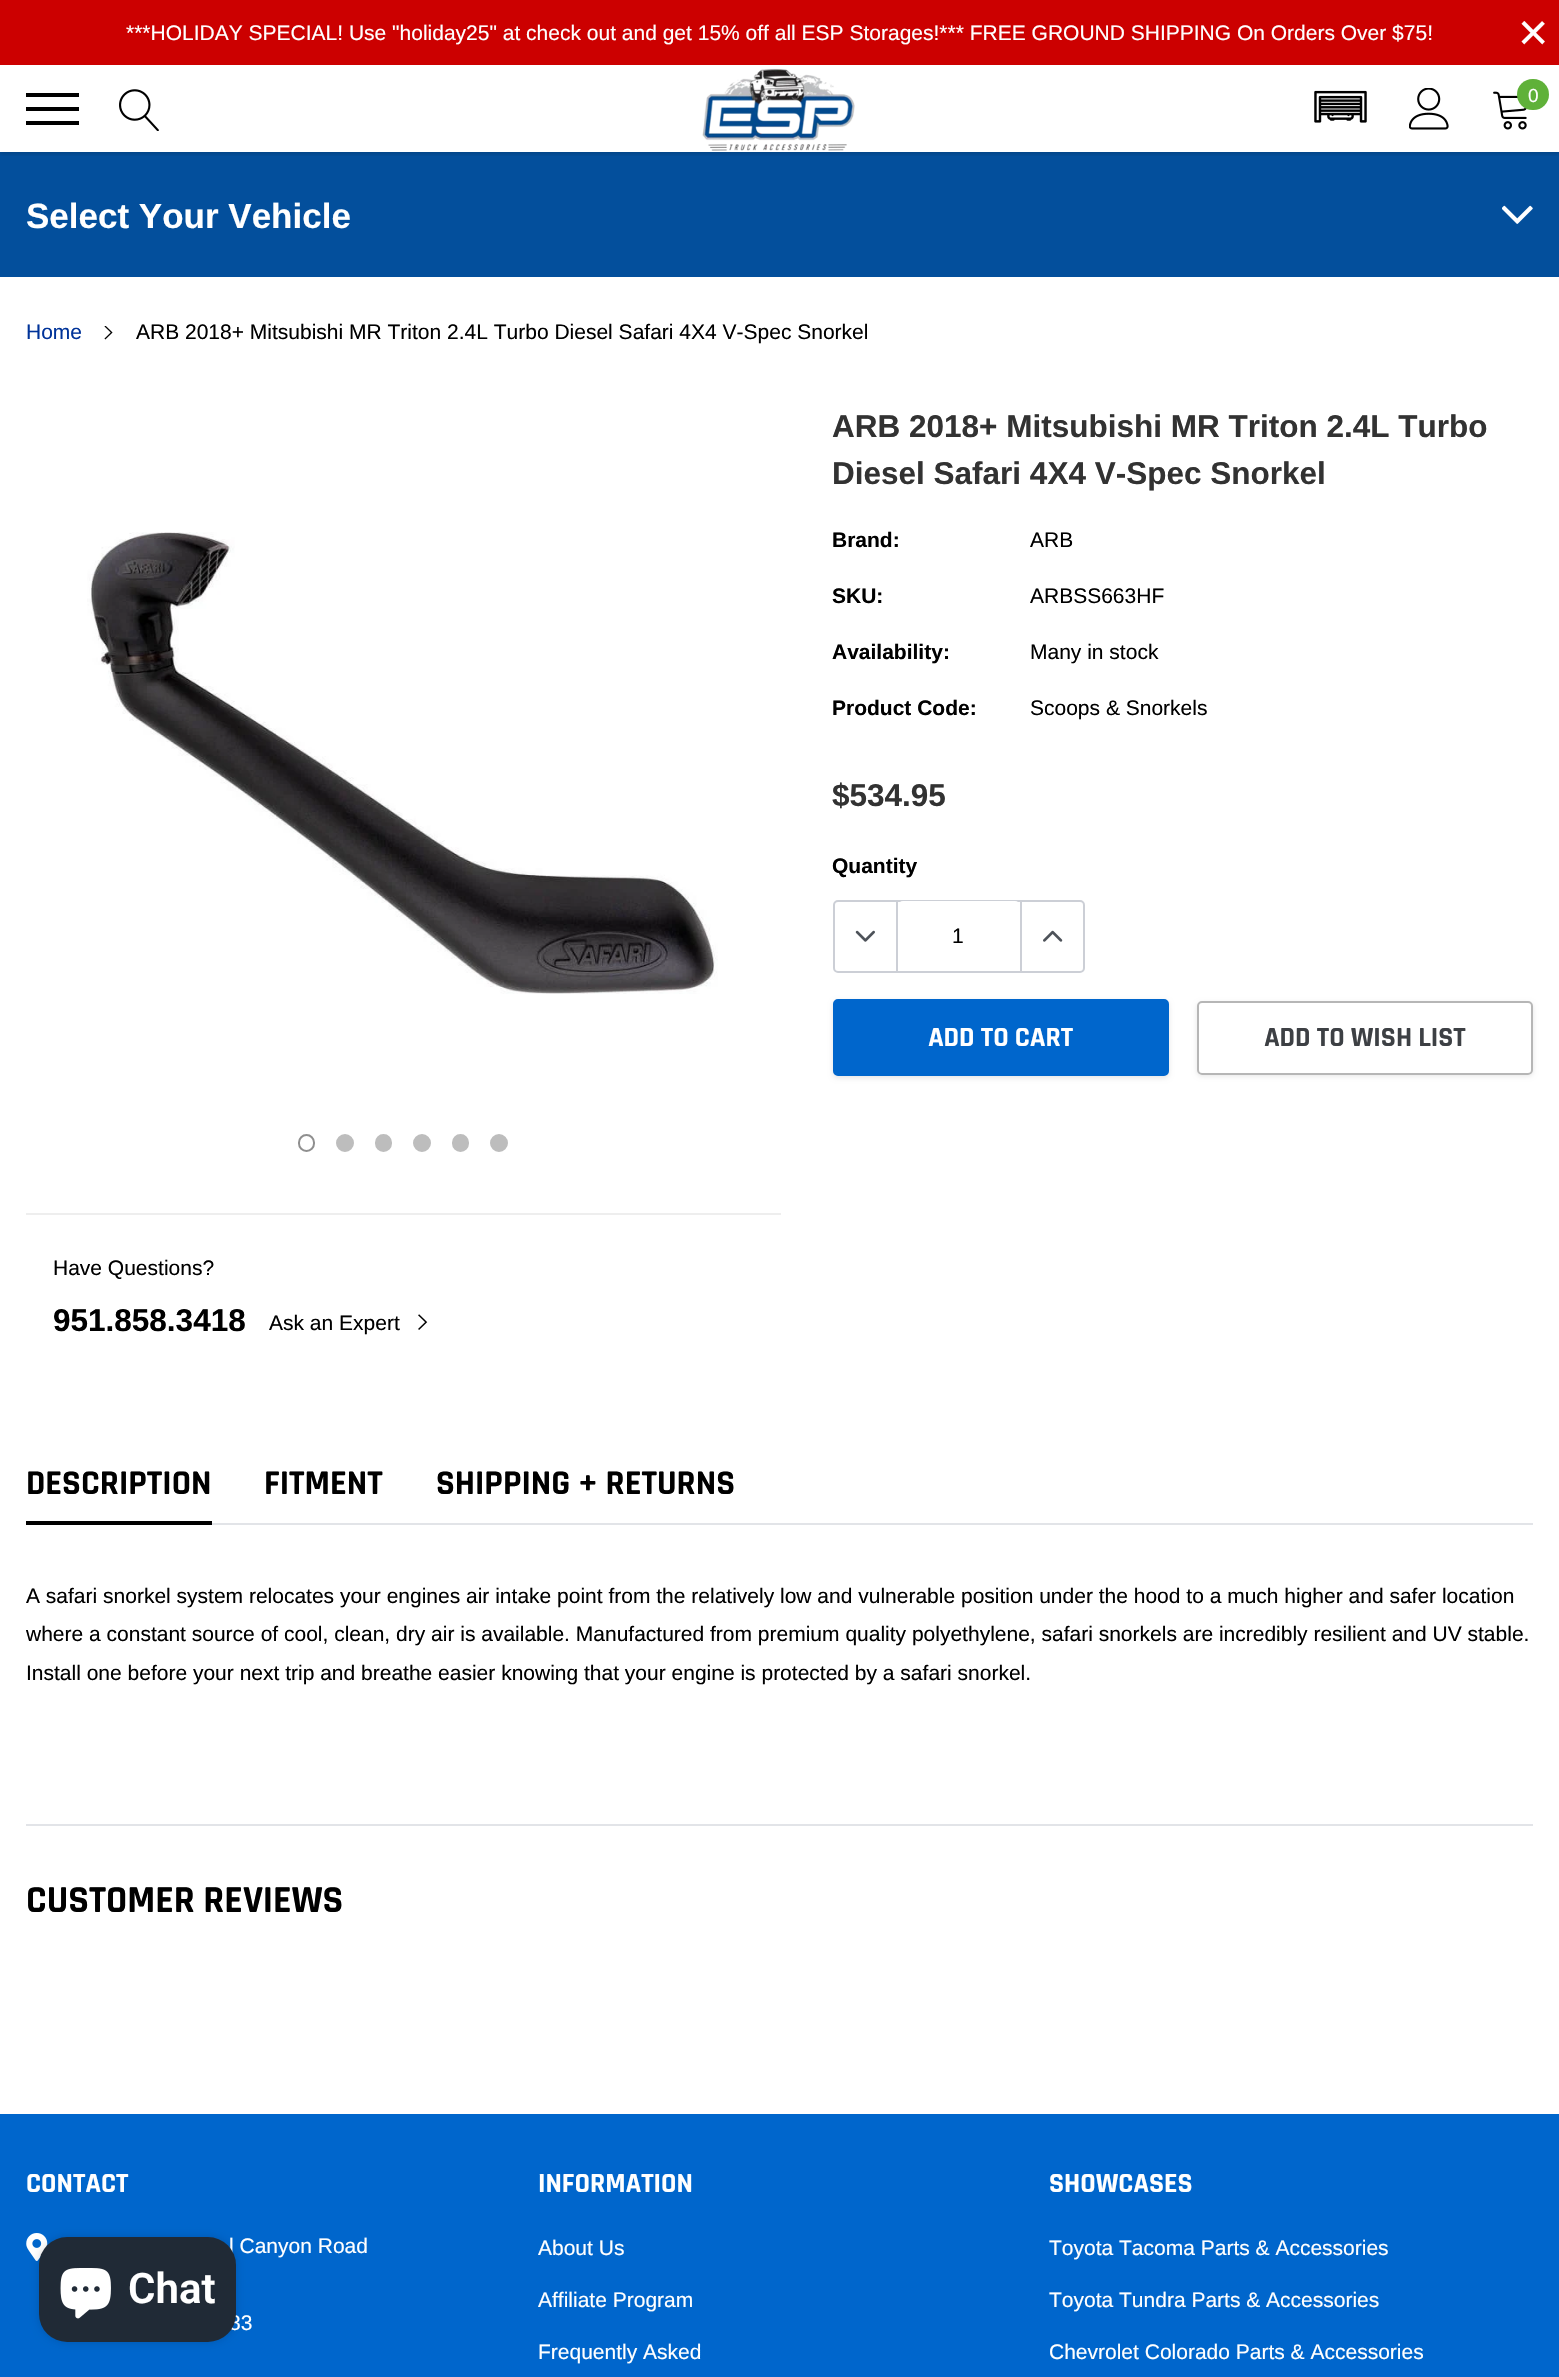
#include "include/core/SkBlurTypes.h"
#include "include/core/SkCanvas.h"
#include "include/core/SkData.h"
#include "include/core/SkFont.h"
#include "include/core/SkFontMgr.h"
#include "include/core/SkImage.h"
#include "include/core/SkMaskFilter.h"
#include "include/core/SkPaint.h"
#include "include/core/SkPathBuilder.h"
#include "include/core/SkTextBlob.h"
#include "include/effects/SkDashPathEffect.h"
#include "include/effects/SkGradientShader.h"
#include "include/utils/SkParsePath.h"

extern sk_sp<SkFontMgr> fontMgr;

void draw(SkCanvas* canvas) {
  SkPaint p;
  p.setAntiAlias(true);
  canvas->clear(SK_ColorWHITE);
  p.setColor(SkColorSetRGB(204, 0, 0));
  canvas->drawRect(SkRect::MakeLTRB(0, 0, 1559, 65), p);
  p.setColor(SkColorSetRGB(3, 79, 156));
  canvas->drawRect(SkRect::MakeLTRB(0, 152, 1559, 277), p);
  canvas->save();
  canvas->clipRect(SkRect::MakeLTRB(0, 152, 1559, 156));
  p.setColor(SkColorSetARGB(38, 0, 0, 0));
  p.setMaskFilter(SkMaskFilter::MakeBlur(kNormal_SkBlurStyle, 2));
  canvas->drawRect(SkRect::MakeLTRB(0, 67, 1559, 154), p);
  p.setMaskFilter(nullptr);
  canvas->restore();
  p.setColor(SK_ColorBLACK);
  canvas->drawRect(SkRect::MakeLTRB(26, 107, 79, 111), p);
  canvas->drawRect(SkRect::MakeLTRB(26, 93, 79, 97), p);
  canvas->drawRect(SkRect::MakeLTRB(26, 121, 79, 125), p);
  canvas->drawImageRect(SkImages::DeferredFromEncodedData(SkData::MakeFromFileName("images/1.png")), SkRect::MakeLTRB(119, 89, 159, 131), SkSamplingOptions());
  canvas->drawImageRect(SkImages::DeferredFromEncodedData(SkData::MakeFromFileName("images/2.png")), SkRect::MakeLTRB(702, 68, 855, 151), SkSamplingOptions());
  canvas->drawImageRect(SkImages::DeferredFromEncodedData(SkData::MakeFromFileName("images/3.png")), SkRect::MakeLTRB(1314, 90, 1367, 123), SkSamplingOptions());
  canvas->drawImageRect(SkImages::DeferredFromEncodedData(SkData::MakeFromFileName("images/4.png")), SkRect::MakeLTRB(1409, 88, 1449, 130), SkSamplingOptions());
  canvas->drawImageRect(SkImages::DeferredFromEncodedData(SkData::MakeFromFileName("images/5.png")), SkRect::MakeLTRB(1493, 91, 1527, 130), SkSamplingOptions());
  p.setColor(SkColorSetRGB(95, 177, 57));
  canvas->drawRoundRect(SkRect::MakeLTRB(1517, 79, 1549, 110), 15.5f, 15.5f, p);
  canvas->drawImageRect(SkImages::DeferredFromEncodedData(SkData::MakeFromFileName("images/6.png")), SkRect::MakeLTRB(1502, 205, 1533, 224), SkSamplingOptions());
  canvas->drawImageRect(SkImages::DeferredFromEncodedData(SkData::MakeFromFileName("images/7.png")), SkRect::MakeLTRB(104, 326, 113, 340), SkSamplingOptions());
  p.setStyle(SkPaint::kStroke_Style);
  p.setStrokeWidth(2);
  p.setColor(SkColorSetRGB(204, 207, 214));
  canvas->drawRoundRect(SkRect::MakeLTRB(834, 901, 1084, 972), 4, 4, p);
  p.setStyle(SkPaint::kFill_Style);
  canvas->drawRect(SkRect::MakeLTRB(896, 901, 898, 971), p);
  canvas->drawImageRect(SkImages::DeferredFromEncodedData(SkData::MakeFromFileName("images/8.png")), SkRect::MakeLTRB(855, 930, 875, 942), SkSamplingOptions());
  p.setColor(SK_ColorWHITE);
  canvas->drawRoundRect(SkRect::MakeLTRB(898, 901, 1020, 971), 5, 5, p);
  p.setColor(SkColorSetRGB(204, 207, 214));
  canvas->drawRect(SkRect::MakeLTRB(1020, 901, 1022, 971), p);
  canvas->drawImageRect(SkImages::DeferredFromEncodedData(SkData::MakeFromFileName("images/9.png")), SkRect::MakeLTRB(1043, 930, 1063, 942), SkSamplingOptions());
  p.setColor(SkColorSetARGB(26, 0, 0, 0));
  p.setMaskFilter(SkMaskFilter::MakeBlur(kNormal_SkBlurStyle, 2.5f));
  canvas->drawRoundRect(SkRect::MakeLTRB(833, 1001, 1169, 1078), 5, 5, p);
  p.setMaskFilter(nullptr);
  p.setColor(SkColorSetRGB(0, 102, 204));
  canvas->drawRoundRect(SkRect::MakeLTRB(834, 1000, 1168, 1075), 4, 4, p);
  p.setStyle(SkPaint::kStroke_Style);
  canvas->drawRoundRect(SkRect::MakeLTRB(834, 1000, 1168, 1075), 4, 4, p);
  canvas->save();
  canvas->clipPath(SkPathBuilder(SkPathFillType::kEvenOdd).moveTo(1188, 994).lineTo(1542, 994).lineTo(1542, 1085).lineTo(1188, 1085).close().moveTo(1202, 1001).lineTo(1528, 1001).cubicTo(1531, 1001, 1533, 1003, 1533, 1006).lineTo(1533, 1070).cubicTo(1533, 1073, 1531, 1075, 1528, 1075).lineTo(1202, 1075).cubicTo(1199, 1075, 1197, 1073, 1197, 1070).lineTo(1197, 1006).cubicTo(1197, 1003, 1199, 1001, 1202, 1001).close().detach(), true);
  p.setStyle(SkPaint::kFill_Style);
  p.setColor(SkColorSetARGB(26, 0, 0, 0));
  p.setMaskFilter(SkMaskFilter::MakeBlur(kNormal_SkBlurStyle, 2.5f));
  canvas->drawRoundRect(SkRect::MakeLTRB(1197, 1003, 1533, 1076), 5, 5, p);
  p.setMaskFilter(nullptr);
  canvas->restore();
  p.setStyle(SkPaint::kStroke_Style);
  p.setColor(SkColorSetRGB(182, 182, 182));
  canvas->drawRoundRect(SkRect::MakeLTRB(1198, 1002, 1532, 1074), 4, 4, p);
  canvas->drawImageRect(SkImages::DeferredFromEncodedData(SkData::MakeFromFileName("images/10.png")), SkRect::MakeLTRB(87, 532, 718, 994), SkSamplingOptions());
  p.setColor(SkColorSetRGB(143, 143, 143));
  canvas->drawRoundRect(SkRect::MakeLTRB(299, 1135, 314, 1151), 7.5f, 7.5f, p);
  p.setStyle(SkPaint::kFill_Style);
  p.setColor(SkColorSetRGB(189, 189, 189));
  canvas->drawCircle(345, 1143, 8, p);
  p.setStyle(SkPaint::kStroke_Style);
  canvas->drawCircle(345, 1143, 8, p);
  p.setStyle(SkPaint::kFill_Style);
  canvas->drawRoundRect(SkRect::MakeLTRB(376, 1135, 391, 1151), 7.5f, 7.5f, p);
  p.setStyle(SkPaint::kStroke_Style);
  canvas->drawRoundRect(SkRect::MakeLTRB(376, 1135, 391, 1151), 7.5f, 7.5f, p);
  p.setStyle(SkPaint::kFill_Style);
  canvas->drawCircle(422, 1143, 8, p);
  p.setStyle(SkPaint::kStroke_Style);
  canvas->drawCircle(422, 1143, 8, p);
  p.setStyle(SkPaint::kFill_Style);
  canvas->drawRoundRect(SkRect::MakeLTRB(453, 1135, 468, 1151), 7.5f, 7.5f, p);
  p.setStyle(SkPaint::kStroke_Style);
  canvas->drawRoundRect(SkRect::MakeLTRB(453, 1135, 468, 1151), 7.5f, 7.5f, p);
  p.setStyle(SkPaint::kFill_Style);
  canvas->drawCircle(499, 1143, 8, p);
  p.setStyle(SkPaint::kStroke_Style);
  canvas->drawCircle(499, 1143, 8, p);
  p.setStyle(SkPaint::kFill_Style);
  p.setColor(SkColorSetRGB(238, 238, 238));
  canvas->drawRect(SkRect::MakeLTRB(26, 1213, 781, 1215), p);
  canvas->drawImageRect(SkImages::DeferredFromEncodedData(SkData::MakeFromFileName("images/11.png")), SkRect::MakeLTRB(418, 1314, 428, 1330), SkSamplingOptions());
  p.setColor(SkColorSetRGB(226, 228, 232));
  canvas->drawRect(SkRect::MakeLTRB(212, 1523, 1533, 1525), p);
  p.setColor(SK_ColorBLACK);
  canvas->drawRect(SkRect::MakeLTRB(26, 1521, 212, 1525), p);
  p.setColor(SkColorSetRGB(226, 228, 232));
  canvas->drawRect(SkRect::MakeLTRB(26, 1824, 1533, 1826), p);
  p.setColor(SkColorSetRGB(0, 102, 204));
  canvas->drawRect(SkRect::MakeLTRB(0, 2114, 1559, 2377), p);
  canvas->drawImageRect(SkImages::DeferredFromEncodedData(SkData::MakeFromFileName("images/12.png")), SkRect::MakeLTRB(26, 2233, 48, 2261), SkSamplingOptions());
  p.setColor(SkColorSetARGB(38, 0, 0, 0));
  p.setMaskFilter(SkMaskFilter::MakeBlur(kNormal_SkBlurStyle, 4.5f));
  canvas->drawRoundRect(SkRect::MakeLTRB(39, 2237, 236, 2342), 28, 28, p);
  p.setMaskFilter(nullptr);
  SkFont font1(fontMgr->matchFamilyStyle("Arimo", SkFontStyle::Normal()), 21);
  font1.setSubpixel(true);
  p.setColor(SK_ColorWHITE);
  canvas->drawString("***HOLIDAY SPECIAL! Use \"holiday25\" at check out and get 15% off all ESP Storages!*** FREE GROUND SHIPPING On Orders Over $75!", 126, 40, font1, p);
  SkFont font2(fontMgr->matchFamilyStyle("Arimo", SkFontStyle::Normal()), 52);
  font2.setSubpixel(true);
  canvas->drawString("×", 1518, 50, font2, p);
  SkFont font3(fontMgr->matchFamilyStyle("Arimo", SkFontStyle::Normal()), 19);
  font3.setSubpixel(true);
  canvas->drawString("0", 1528, 102, font3, p);
  SkFont font4(fontMgr->matchFamilyStyle("Arimo", SkFontStyle::Bold()), 35);
  font4.setSubpixel(true);
  canvas->drawString("Select Your Vehicle", 26, 228, font4, p);
  p.setColor(SkColorSetRGB(0, 51, 153));
  canvas->drawString("Home", 26, 339, font1, p);
  p.setColor(SK_ColorBLACK);
  canvas->drawString("ARB 2018+ Mitsubishi MR Triton 2.4L Turbo Diesel Safari 4X4 V-Spec Snorkel", 136, 339, font1, p);
  SkFont font5(fontMgr->matchFamilyStyle("Arimo", SkFontStyle::Bold()), 31.5f);
  font5.setSubpixel(true);
  p.setColor(SkColorSetRGB(50, 50, 50));
  canvas->drawString("ARB 2018+ Mitsubishi MR Triton 2.4L Turbo", 832, 437, font5, p);
  canvas->drawString("Diesel Safari 4X4 V-Spec Snorkel", 832, 484, font5, p);
  SkFont font6(fontMgr->matchFamilyStyle("Arimo", SkFontStyle::Bold()), 21);
  font6.setSubpixel(true);
  p.setColor(SK_ColorBLACK);
  canvas->drawString("Brand:", 832, 547, font6, p);
  canvas->drawString("ARB", 1030, 547, font1, p);
  canvas->drawString("SKU:", 832, 603, font6, p);
  canvas->drawString("ARBSS663HF", 1030, 603, font1, p);
  canvas->drawString("Availability:", 832, 659, font6, p);
  canvas->drawString("Many in stock", 1030, 659, font1, p);
  canvas->drawString("Product Code:", 832, 715, font6, p);
  canvas->drawString("Scoops & Snorkels", 1030, 715, font1, p);
  p.setColor(SkColorSetRGB(50, 50, 50));
  canvas->drawString("$534.95", 832, 806, font5, p);
  p.setColor(SK_ColorBLACK);
  canvas->drawString("Quantity", 832, 873, font6, p);
  canvas->drawString("1", 952, 943, font1, p);
  SkFont font7(fontMgr->matchFamilyStyle("Rajdhani", SkFontStyle::Bold()), 28);
  font7.setSubpixel(true);
  p.setColor(SK_ColorWHITE);
  canvas->drawString("ADD TO CART", 928, 1046, font7, p);
  p.setColor(SkColorSetRGB(61, 64, 68));
  canvas->drawString("ADD TO WISH LIST", 1264, 1046, font7, p);
  p.setColor(SK_ColorBLACK);
  canvas->drawString("Have Questions?", 53, 1275, font1, p);
  canvas->drawString("951.858.3418", 53, 1331, font5, p);
  canvas->drawString("Ask an Expert", 269, 1330, font1, p);
  SkFont font8(fontMgr->matchFamilyStyle("Rajdhani", SkFontStyle::Bold()), 35);
  font8.setSubpixel(true);
  canvas->drawString("DESCRIPTION", 26, 1494, font8, p);
  canvas->drawString("FITMENT", 264, 1494, font8, p);
  canvas->drawString("SHIPPING + RETURNS", 436, 1494, font8, p);
  canvas->drawString("A safari snorkel system relocates your engines air intake point from the relatively low and vulnerable position under the hood to a much higher and safer location", 26, 1603, font1, p);
  canvas->drawString("where a constant source of cool, clean, dry air is available. Manufactured from premium quality polyethylene, safari snorkels are incredibly resilient and UV stable.", 26, 1641, font1, p);
  canvas->drawString("Install one before your next trip and breathe easier knowing that your engine is protected by a safari snorkel.", 26, 1680, font1, p);
  SkFont font9(fontMgr->matchFamilyStyle("Rajdhani", SkFontStyle::Bold()), 38.5f);
  font9.setSubpixel(true);
  canvas->drawString("CUSTOMER REVIEWS", 26, 1912, font9, p);
  p.setColor(SK_ColorWHITE);
  canvas->drawString("CONTACT", 26, 2192, font7, p);
  canvas->drawString("l Canyon Road", 229, 2253, font1, p);
  canvas->drawString("83", 229, 2330, font1, p);
  canvas->drawString("INFORMATION", 538, 2192, font7, p);
  canvas->drawString("About Us", 538, 2255, font1, p);
  canvas->drawString("Affiliate Program", 538, 2307, font1, p);
  canvas->drawString("Frequently Asked", 538, 2359, font1, p);
  canvas->drawString("SHOWCASES", 1049, 2192, font7, p);
  canvas->drawString("Toyota Tacoma Parts & Accessories", 1049, 2255, font1, p);
  canvas->drawString("Toyota Tundra Parts & Accessories", 1049, 2307, font1, p);
  canvas->drawString("Chevrolet Colorado Parts & Accessories", 1049, 2359, font1, p);
  p.setColor(SkColorSetRGB(32, 42, 54));
  canvas->drawRoundRect(SkRect::MakeLTRB(39, 2237, 236, 2342), 28, 28, p);
  canvas->drawImageRect(SkImages::DeferredFromEncodedData(SkData::MakeFromFileName("images/13.png")), SkRect::MakeLTRB(60, 2268, 111, 2319), SkSamplingOptions());
  SkFont font10(fontMgr->matchFamilyStyle("Roboto", SkFontStyle(600, SkFontStyle::kNormal_Width, SkFontStyle::kUpright_Slant)), 42);
  font10.setSubpixel(true);
  p.setColor(SK_ColorWHITE);
  canvas->drawString("Chat", 128, 2303, font10, p);
}
